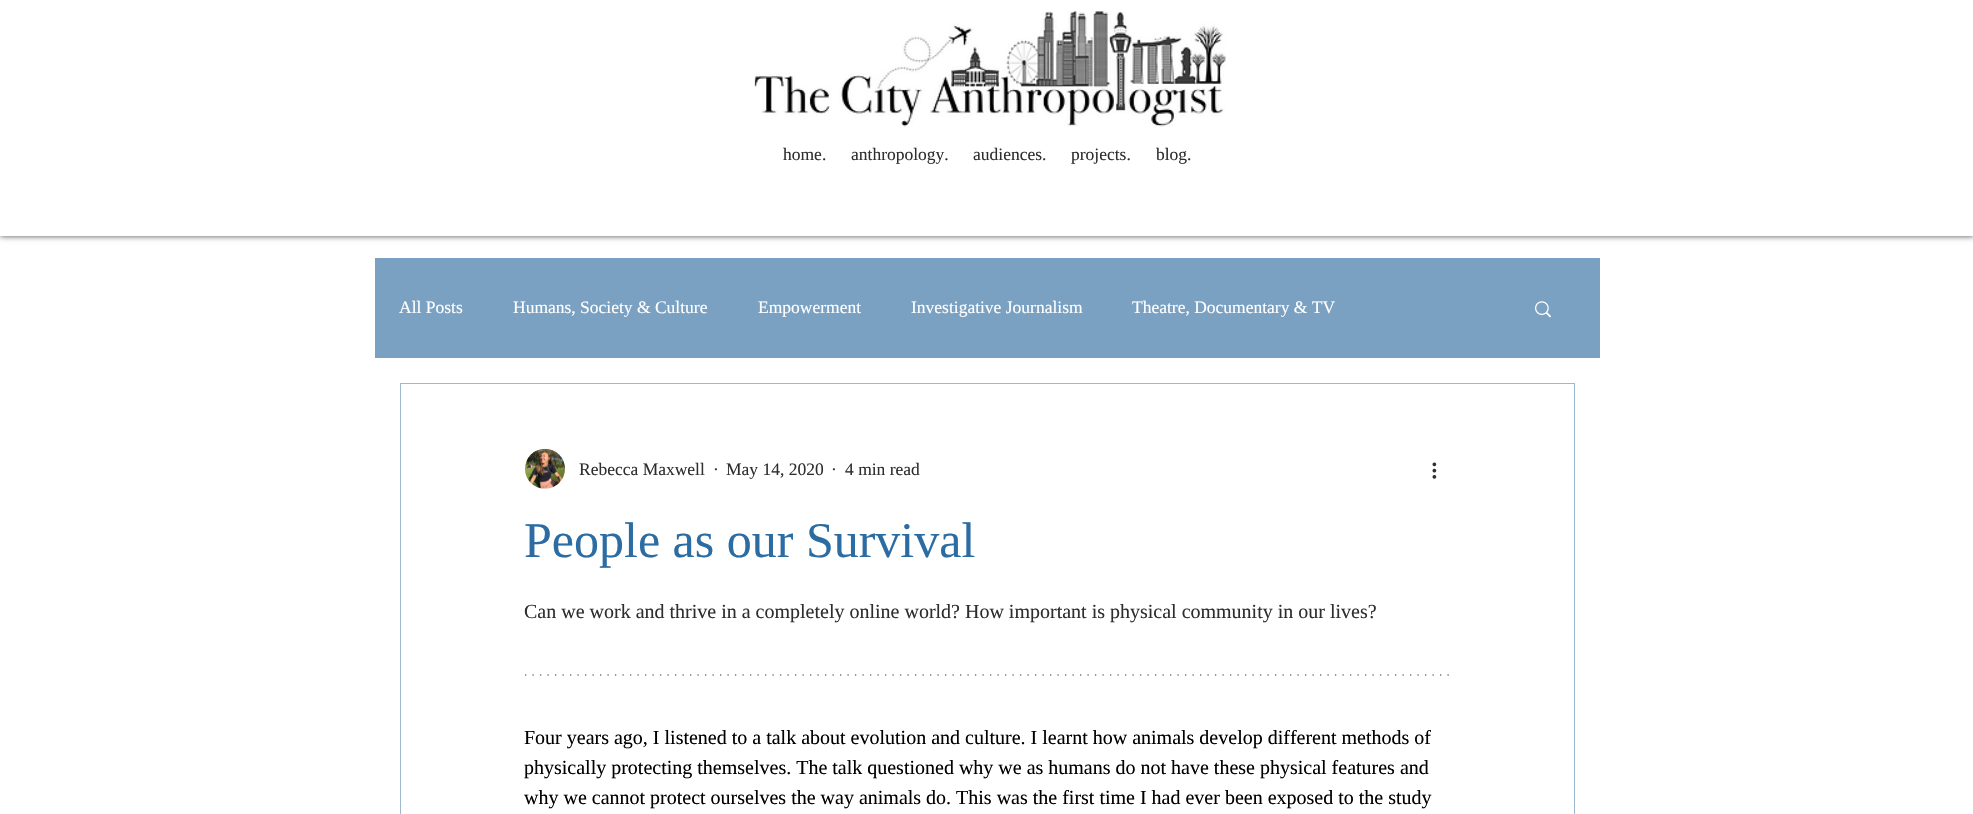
#include "include/core/SkBlurTypes.h"
#include "include/core/SkCanvas.h"
#include "include/core/SkData.h"
#include "include/core/SkFont.h"
#include "include/core/SkFontMgr.h"
#include "include/core/SkImage.h"
#include "include/core/SkMaskFilter.h"
#include "include/core/SkPaint.h"
#include "include/core/SkPathBuilder.h"
#include "include/core/SkTextBlob.h"
#include "include/effects/SkDashPathEffect.h"
#include "include/effects/SkGradientShader.h"
#include "include/utils/SkParsePath.h"

extern sk_sp<SkFontMgr> fontMgr;

void draw(SkCanvas* canvas) {
  SkPaint p;
  p.setAntiAlias(true);
  canvas->clear(SK_ColorWHITE);
  p.setColor(SkColorSetARGB(179, 0, 0, 0));
  p.setMaskFilter(SkMaskFilter::MakeBlur(kNormal_SkBlurStyle, 3));
  canvas->drawRect(SkRect::MakeLTRB(0, 0, 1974, 236), p);
  p.setMaskFilter(nullptr);
  p.setColor(SK_ColorWHITE);
  canvas->drawRect(SkRect::MakeLTRB(0, 0, 1973, 236), p);
  canvas->drawImageRect(SkImages::DeferredFromEncodedData(SkData::MakeFromFileName("images/1.png")), SkRect::MakeLTRB(754, 11, 1226, 127), SkSamplingOptions());
  p.setColor(SkColorSetRGB(122, 161, 194));
  canvas->drawRect(SkRect::MakeLTRB(375, 258, 1600, 358), p);
  canvas->drawImageRect(SkImages::DeferredFromEncodedData(SkData::MakeFromFileName("images/2.png")), SkRect::MakeLTRB(1535, 301, 1552, 318), SkSamplingOptions());
  p.setStyle(SkPaint::kStroke_Style);
  p.setStrokeWidth(1);
  p.setColor(SkColorSetRGB(155, 185, 209));
  canvas->drawRect(SkRect::MakeLTRB(400.5f, 383.5f, 1574.5f, 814.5f), p);
  canvas->drawImageRect(SkImages::DeferredFromEncodedData(SkData::MakeFromFileName("images/3.png")), SkRect::MakeLTRB(525, 448, 565, 489), SkSamplingOptions());
  canvas->drawImageRect(SkImages::DeferredFromEncodedData(SkData::MakeFromFileName("images/4.png")), SkRect::MakeLTRB(1432, 462, 1437, 479), SkSamplingOptions());
  p.setStrokeWidth(1.2f);
  p.setColor(SkColorSetRGB(47, 46, 46));
  p.setPathEffect(SkDashPathEffect::Make({{1.25f, 6.25f}}, 0));
  canvas->drawPath(SkPathBuilder().moveTo(525, 675).lineTo(1450, 675).detach(), p);
  p.setPathEffect(nullptr);
  SkFont font1(fontMgr->matchFamilyStyle("Liberation Serif", SkFontStyle::Normal()), 17.5f);
  font1.setSubpixel(true);
  p.setStyle(SkPaint::kFill_Style);
  canvas->drawString("home.", 783, 160, font1, p);
  canvas->drawString("anthropology.", 851, 160, font1, p);
  canvas->drawString("audiences.", 973, 160, font1, p);
  canvas->drawString("projects.", 1071, 160, font1, p);
  canvas->drawString("blog.", 1156, 160, font1, p);
  p.setColor(SK_ColorWHITE);
  canvas->drawString("All Posts", 399, 313, font1, p);
  canvas->drawString("Humans, Society & Culture", 513, 313, font1, p);
  canvas->drawString("Empowerment", 758, 313, font1, p);
  canvas->drawString("Investigative Journalism", 911, 313, font1, p);
  canvas->drawString("Theatre, Documentary & TV", 1132, 313, font1, p);
  p.setColor(SkColorSetRGB(47, 46, 46));
  canvas->drawString("Rebecca Maxwell", 579, 475, font1, p);
  canvas->drawString("·", 713, 475, font1, p);
  canvas->drawString("May 14, 2020", 726, 475, font1, p);
  canvas->drawString("·", 831, 475, font1, p);
  canvas->drawString("4 min read", 845, 475, font1, p);
  SkFont font2(fontMgr->matchFamilyStyle("Liberation Serif", SkFontStyle::Normal()), 50);
  font2.setSubpixel(true);
  p.setColor(SkColorSetRGB(43, 108, 163));
  canvas->drawString("People as our Survival", 524, 557, font2, p);
  SkFont font3(fontMgr->matchFamilyStyle("Liberation Serif", SkFontStyle::Normal()), 20);
  font3.setSubpixel(true);
  p.setColor(SkColorSetRGB(47, 46, 46));
  canvas->drawString("Can we work and thrive in a completely online world? How important is physical community in our lives?", 524, 618, font3, p);
  p.setColor(SK_ColorBLACK);
  canvas->drawString("Four years ago, I listened to a talk about evolution and culture. I learnt how animals develop different methods of", 524, 744, font3, p);
  canvas->drawString("physically protecting themselves. The talk questioned why we as humans do not have these physical features and", 524, 774, font3, p);
  canvas->drawString("why we cannot protect ourselves the way animals do. This was the first time I had ever been exposed to the study", 524, 804, font3, p);
}
